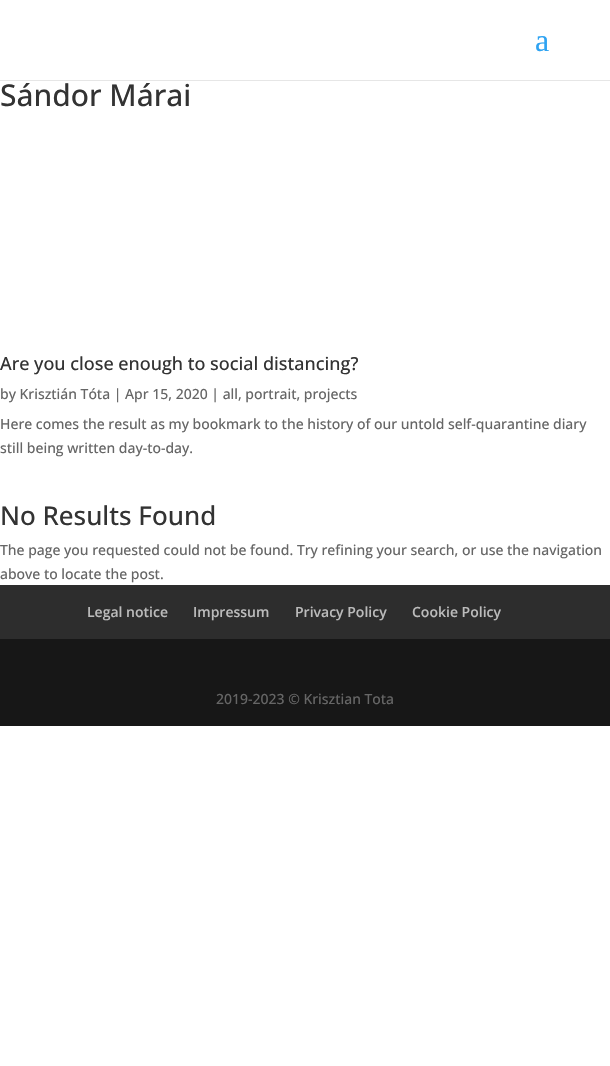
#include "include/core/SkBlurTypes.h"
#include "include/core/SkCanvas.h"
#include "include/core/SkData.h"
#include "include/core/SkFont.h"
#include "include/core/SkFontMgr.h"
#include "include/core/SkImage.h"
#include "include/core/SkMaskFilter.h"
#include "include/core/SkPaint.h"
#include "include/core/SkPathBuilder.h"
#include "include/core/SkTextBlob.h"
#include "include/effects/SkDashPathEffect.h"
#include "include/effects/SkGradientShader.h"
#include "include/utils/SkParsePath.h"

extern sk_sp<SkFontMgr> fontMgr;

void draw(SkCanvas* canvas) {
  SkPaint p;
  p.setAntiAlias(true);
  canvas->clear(SK_ColorWHITE);
  p.setColor(SkColorSetRGB(230, 230, 230));
  canvas->drawRect(SkRect::MakeLTRB(0, 80, 610, 81), p);
  p.setColor(SkColorSetRGB(45, 45, 45));
  canvas->drawRect(SkRect::MakeLTRB(0, 585, 610, 639), p);
  p.setColor(SkColorSetRGB(23, 23, 23));
  canvas->drawRect(SkRect::MakeLTRB(0, 639, 610, 726), p);
  SkFont font1(fontMgr->matchFamilyStyle("Liberation Serif", SkFontStyle::Normal()), 32);
  font1.setSubpixel(true);
  p.setColor(SkColorSetRGB(46, 163, 242));
  canvas->drawString("a", 535, 51, font1, p);
  SkFont font2(fontMgr->matchFamilyStyle("Open Sans", SkFontStyle(500, SkFontStyle::kNormal_Width, SkFontStyle::kUpright_Slant)), 30);
  font2.setSubpixel(true);
  p.setColor(SkColorSetRGB(51, 51, 51));
  canvas->drawString("Sándor Márai", 0, 106, font2, p);
  SkFont font3(fontMgr->matchFamilyStyle("Open Sans", SkFontStyle(500, SkFontStyle::kNormal_Width, SkFontStyle::kUpright_Slant)), 18);
  font3.setSubpixel(true);
  canvas->drawString("Are you close enough to social distancing?", 0, 370, font3, p);
  SkFont font4(fontMgr->matchFamilyStyle("Open Sans", SkFontStyle(500, SkFontStyle::kNormal_Width, SkFontStyle::kUpright_Slant)), 14);
  font4.setSubpixel(true);
  p.setColor(SkColorSetRGB(102, 102, 102));
  canvas->drawString("by Krisztián Tóta | Apr 15, 2020 | all, portrait, projects", 0, 399, font4, p);
  canvas->drawString("Here comes the result as my bookmark to the history of our untold self-quarantine diary", 0, 429, font4, p);
  canvas->drawString("still being written day-to-day.", 0, 453, font4, p);
  SkFont font5(fontMgr->matchFamilyStyle("Open Sans", SkFontStyle(500, SkFontStyle::kNormal_Width, SkFontStyle::kUpright_Slant)), 26);
  font5.setSubpixel(true);
  p.setColor(SkColorSetRGB(51, 51, 51));
  canvas->drawString("No Results Found", 0, 525, font5, p);
  p.setColor(SkColorSetRGB(102, 102, 102));
  canvas->drawString("The page you requested could not be found. Try refining your search, or use the navigation", 0, 555, font4, p);
  canvas->drawString("above to locate the post.", 0, 579, font4, p);
  SkFont font6(fontMgr->matchFamilyStyle("Open Sans", SkFontStyle(600, SkFontStyle::kNormal_Width, SkFontStyle::kUpright_Slant)), 14);
  font6.setSubpixel(true);
  p.setColor(SkColorSetRGB(187, 187, 187));
  canvas->drawString("Legal notice", 87, 617, font6, p);
  canvas->drawString("Impressum", 193, 617, font6, p);
  canvas->drawString("Privacy Policy", 295, 617, font6, p);
  canvas->drawString("Cookie Policy", 412, 617, font6, p);
  p.setColor(SkColorSetRGB(102, 102, 102));
  canvas->drawString("2019-2023 © Krisztian Tota", 216, 704, font4, p);
}
